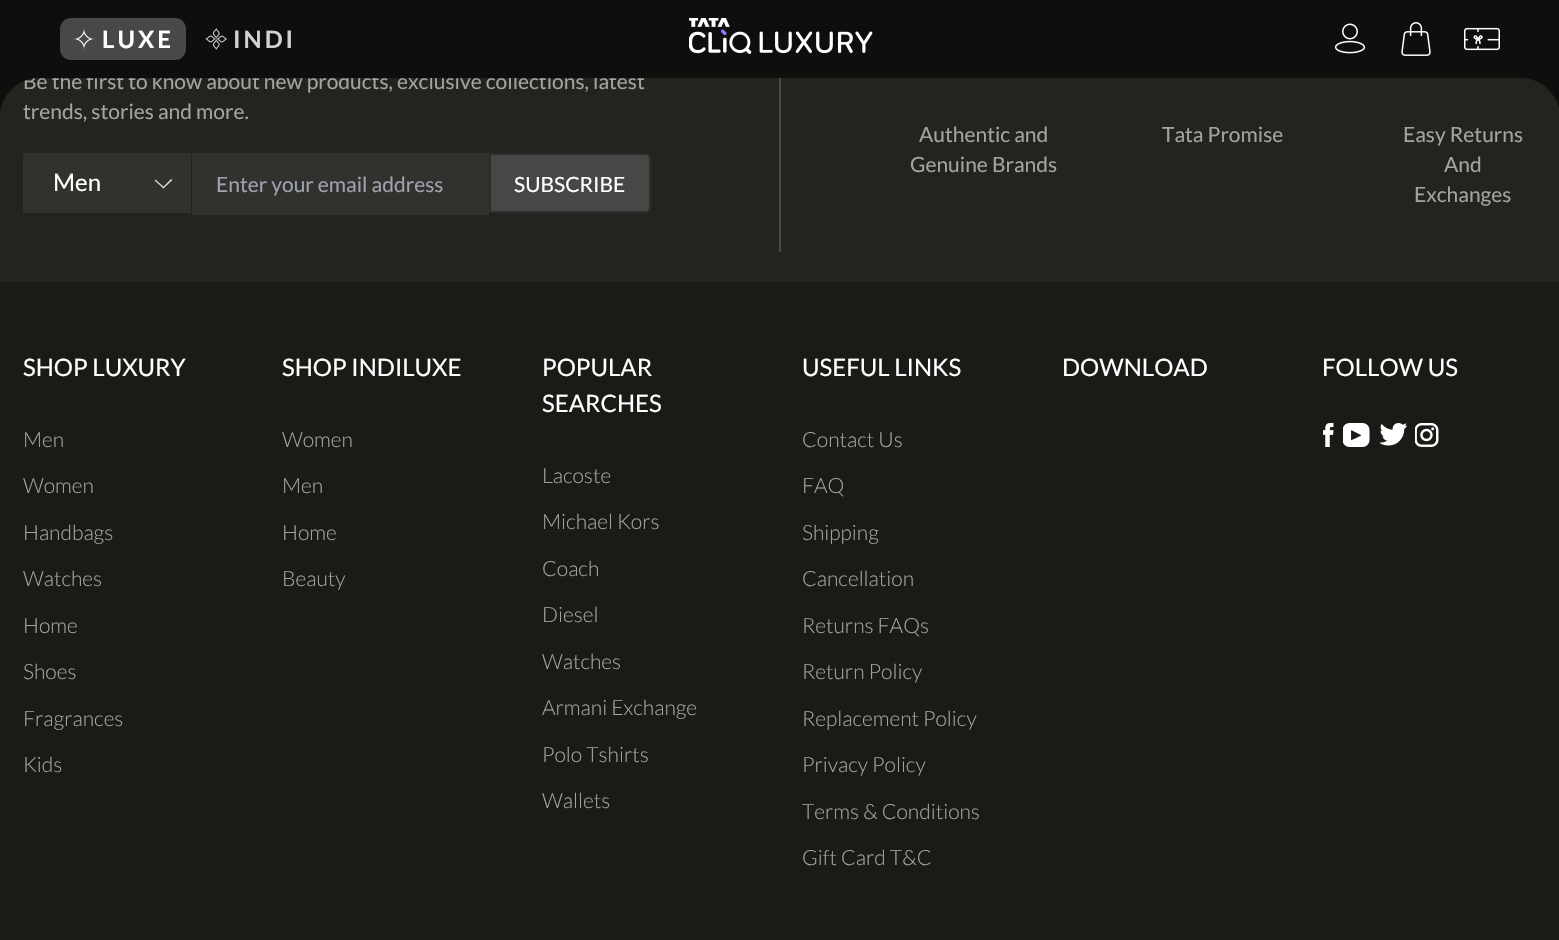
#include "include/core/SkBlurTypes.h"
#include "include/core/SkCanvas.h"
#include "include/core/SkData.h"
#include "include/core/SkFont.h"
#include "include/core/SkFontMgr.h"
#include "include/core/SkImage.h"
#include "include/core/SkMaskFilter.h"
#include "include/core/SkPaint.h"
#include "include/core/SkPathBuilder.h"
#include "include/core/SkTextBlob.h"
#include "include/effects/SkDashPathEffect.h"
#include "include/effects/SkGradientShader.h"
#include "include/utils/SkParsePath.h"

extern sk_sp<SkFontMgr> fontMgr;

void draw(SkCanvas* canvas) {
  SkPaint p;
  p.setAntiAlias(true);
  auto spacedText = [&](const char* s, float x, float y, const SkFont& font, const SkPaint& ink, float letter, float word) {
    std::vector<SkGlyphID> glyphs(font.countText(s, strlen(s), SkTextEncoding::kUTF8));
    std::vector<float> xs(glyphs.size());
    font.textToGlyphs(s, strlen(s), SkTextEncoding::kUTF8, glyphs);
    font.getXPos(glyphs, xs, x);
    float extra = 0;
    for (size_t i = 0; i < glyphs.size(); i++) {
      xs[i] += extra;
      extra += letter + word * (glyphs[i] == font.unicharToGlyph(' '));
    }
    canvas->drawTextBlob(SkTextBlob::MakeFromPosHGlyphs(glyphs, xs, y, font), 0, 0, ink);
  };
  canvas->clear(SkColorSetRGB(28, 26, 23));
  p.setColor(SkColorSetRGB(37, 35, 32));
  canvas->drawRect(SkRect::MakeLTRB(0, 78, 1559, 282), p);
  canvas->save();
  canvas->clipRect(SkRect::MakeLTRB(1518, 78, 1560, 120));
  p.setColor(SkColorSetRGB(15, 14, 13));
  canvas->drawPath(SkPathBuilder().moveTo(1518, 78).cubicTo(1541, 76, 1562, 97, 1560, 120).lineTo(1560, 78).close().detach(), p);
  canvas->restore();
  p.setColor(SkColorSetRGB(73, 71, 69));
  canvas->drawRect(SkRect::MakeLTRB(779, 78, 781, 252), p);
  p.setColor(SkColorSetRGB(51, 49, 46));
  canvas->drawRect(SkRect::MakeLTRB(23, 153, 191, 213), p);
  p.setColor(SkColorSetRGB(209, 209, 208));
  canvas->drawPath(SkPathBuilder().moveTo(172.5f, 180).lineTo(163.5f, 188.5f).lineTo(162.5f, 187.5f).lineTo(171, 179).close().detach(), p);
  canvas->drawPath(SkPathBuilder().moveTo(164.5f, 187.5f).lineTo(163.5f, 188.5f).lineTo(154.5f, 180.5f).lineTo(155.5f, 179.5f).close().detach(), p);
  p.setColor(SkColorSetRGB(51, 49, 46));
  canvas->drawRect(SkRect::MakeLTRB(192, 153, 489, 215), p);
  p.setColor(SkColorSetRGB(73, 71, 69));
  canvas->drawPath(SkPathBuilder().moveTo(490, 154).lineTo(645, 154).cubicTo(648, 154, 650, 156, 650, 159).lineTo(650, 207).cubicTo(650, 210, 648, 212, 645, 212).lineTo(490, 212).close().detach(), p);
  p.setStyle(SkPaint::kStroke_Style);
  p.setStrokeWidth(2);
  p.setColor(SkColorSetRGB(45, 45, 45));
  canvas->drawPath(SkPathBuilder().moveTo(490, 154).lineTo(645, 154).cubicTo(648, 154, 650, 156, 650, 159).lineTo(650, 207).cubicTo(650, 210, 648, 212, 645, 212).lineTo(490, 212).close().detach(), p);
  canvas->drawImageRect(SkImages::DeferredFromEncodedData(SkData::MakeFromFileName("images/7.png")), SkRect::MakeLTRB(1323, 423, 1334, 447), SkSamplingOptions());
  canvas->drawImageRect(SkImages::DeferredFromEncodedData(SkData::MakeFromFileName("images/8.png")), SkRect::MakeLTRB(1343, 423, 1370, 447), SkSamplingOptions());
  canvas->drawImageRect(SkImages::DeferredFromEncodedData(SkData::MakeFromFileName("images/9.png")), SkRect::MakeLTRB(1380, 423, 1407, 446), SkSamplingOptions());
  canvas->drawImageRect(SkImages::DeferredFromEncodedData(SkData::MakeFromFileName("images/10.png")), SkRect::MakeLTRB(1415, 423, 1439, 447), SkSamplingOptions());
  SkFont font1(fontMgr->matchFamilyStyle("Lato", SkFontStyle::Normal()), 21);
  font1.setSubpixel(true);
  p.setStyle(SkPaint::kFill_Style);
  p.setColor(SkColorSetRGB(164, 163, 162));
  canvas->drawString("Be the first to know about new products, exclusive collections, latest", 23, 89, font1, p);
  p.setColor(SkColorSetRGB(15, 14, 13));
  canvas->drawRect(SkRect::MakeLTRB(0, 0, 1559, 78), p);
  canvas->drawImageRect(SkImages::DeferredFromEncodedData(SkData::MakeFromFileName("images/5.png")), SkRect::MakeLTRB(1401, 22, 1431, 56), SkSamplingOptions());
  canvas->drawImageRect(SkImages::DeferredFromEncodedData(SkData::MakeFromFileName("images/6.png")), SkRect::MakeLTRB(1464, 27, 1500, 51), SkSamplingOptions());
  canvas->drawImageRect(SkImages::DeferredFromEncodedData(SkData::MakeFromFileName("images/4.png")), SkRect::MakeLTRB(1334, 23, 1366, 54), SkSamplingOptions());
  SkFont font2(fontMgr->matchFamilyStyle("Lato", SkFontStyle::Bold()), 24);
  font2.setSubpixel(true);
  p.setColor(SkColorSetRGB(209, 209, 208));
  spacedText("INDI", 233, 48, font2, p, 3, 0);
  p.setColor(SkColorSetRGB(73, 72, 71));
  canvas->drawRoundRect(SkRect::MakeLTRB(60, 18, 186, 60), 11, 11, p);
  p.setColor(SK_ColorWHITE);
  spacedText("LUXE", 102, 48, font2, p, 3, 0);
  canvas->drawImageRect(SkImages::DeferredFromEncodedData(SkData::MakeFromFileName("images/2.png")), SkRect::MakeLTRB(205, 28, 228, 50), SkSamplingOptions());
  canvas->drawImageRect(SkImages::DeferredFromEncodedData(SkData::MakeFromFileName("images/1.png")), SkRect::MakeLTRB(72, 27, 96, 51), SkSamplingOptions());
  canvas->drawImageRect(SkImages::DeferredFromEncodedData(SkData::MakeFromFileName("images/3.png")), SkRect::MakeLTRB(689, 18, 873, 54), SkSamplingOptions());
  p.setColor(SkColorSetRGB(164, 163, 162));
  canvas->drawString("trends, stories and more.", 23, 119, font1, p);
  canvas->save();
  canvas->clipRect(SkRect::MakeLTRB(0, 78, 42, 120));
  p.setColor(SkColorSetRGB(15, 14, 13));
  canvas->drawPath(SkPathBuilder().moveTo(42, 78).cubicTo(19, 76, -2, 97, 0, 120).lineTo(0, 78).close().detach(), p);
  canvas->restore();
  SkFont font3(fontMgr->matchFamilyStyle("Lato", SkFontStyle::Normal()), 24);
  font3.setSubpixel(true);
  p.setColor(SK_ColorWHITE);
  canvas->drawString("Men", 53, 191, font3, p);
  p.setColor(SkColorSetRGB(156, 163, 175));
  canvas->drawString("Enter your email address", 216, 192, font1, p);
  p.setColor(SK_ColorWHITE);
  canvas->drawString("SUBSCRIBE", 514, 192, font1, p);
  p.setColor(SkColorSetRGB(164, 163, 162));
  canvas->drawString("Authentic and", 919, 142, font1, p);
  canvas->drawString("Genuine Brands", 910, 172, font1, p);
  canvas->drawString("Tata Promise", 1162, 142, font1, p);
  canvas->drawString("Easy Returns", 1403, 142, font1, p);
  canvas->drawString("And", 1444, 172, font1, p);
  canvas->drawString("Exchanges", 1414, 202, font1, p);
  p.setColor(SK_ColorWHITE);
  canvas->drawString("SHOP LUXURY", 23, 376, font3, p);
  SkFont font4(fontMgr->matchFamilyStyle("Lato", SkFontStyle(300, SkFontStyle::kNormal_Width, SkFontStyle::kUpright_Slant)), 21);
  font4.setSubpixel(true);
  p.setColor(SkColorSetRGB(164, 163, 162));
  canvas->drawString("Men", 23, 447, font4, p);
  canvas->drawString("Women", 23, 493, font4, p);
  canvas->drawString("Handbags", 23, 540, font4, p);
  canvas->drawString("Watches", 23, 586, font4, p);
  canvas->drawString("Home", 23, 633, font4, p);
  canvas->drawString("Shoes", 23, 679, font4, p);
  canvas->drawString("Fragrances", 23, 726, font4, p);
  canvas->drawString("Kids", 23, 772, font4, p);
  p.setColor(SK_ColorWHITE);
  canvas->drawString("SHOP INDILUXE", 282, 376, font3, p);
  p.setColor(SkColorSetRGB(164, 163, 162));
  canvas->drawString("Women", 282, 447, font4, p);
  canvas->drawString("Men", 282, 493, font4, p);
  canvas->drawString("Home", 282, 540, font4, p);
  canvas->drawString("Beauty", 282, 586, font4, p);
  p.setColor(SK_ColorWHITE);
  canvas->drawString("POPULAR", 542, 376, font3, p);
  canvas->drawString("SEARCHES", 542, 412, font3, p);
  p.setColor(SkColorSetRGB(164, 163, 162));
  canvas->drawString("Lacoste", 542, 483, font4, p);
  canvas->drawString("Michael Kors", 542, 529, font4, p);
  canvas->drawString("Coach", 542, 576, font4, p);
  canvas->drawString("Diesel", 542, 622, font4, p);
  canvas->drawString("Watches", 542, 669, font4, p);
  canvas->drawString("Armani Exchange", 542, 715, font4, p);
  canvas->drawString("Polo Tshirts", 542, 762, font4, p);
  canvas->drawString("Wallets", 542, 808, font4, p);
  p.setColor(SK_ColorWHITE);
  canvas->drawString("USEFUL LINKS", 802, 376, font3, p);
  p.setColor(SkColorSetRGB(164, 163, 162));
  canvas->drawString("Contact Us", 802, 447, font4, p);
  canvas->drawString("FAQ", 802, 493, font4, p);
  canvas->drawString("Shipping", 802, 540, font4, p);
  canvas->drawString("Cancellation", 802, 586, font4, p);
  canvas->drawString("Returns FAQs", 802, 633, font4, p);
  canvas->drawString("Return Policy", 802, 679, font4, p);
  canvas->drawString("Replacement Policy", 802, 726, font4, p);
  canvas->drawString("Privacy Policy", 802, 772, font4, p);
  canvas->drawString("Terms & Conditions", 802, 819, font4, p);
  canvas->drawString("Gift Card T&C", 802, 865, font4, p);
  p.setColor(SK_ColorWHITE);
  canvas->drawString("DOWNLOAD", 1062, 376, font3, p);
  canvas->drawString("FOLLOW US", 1322, 376, font3, p);
}
